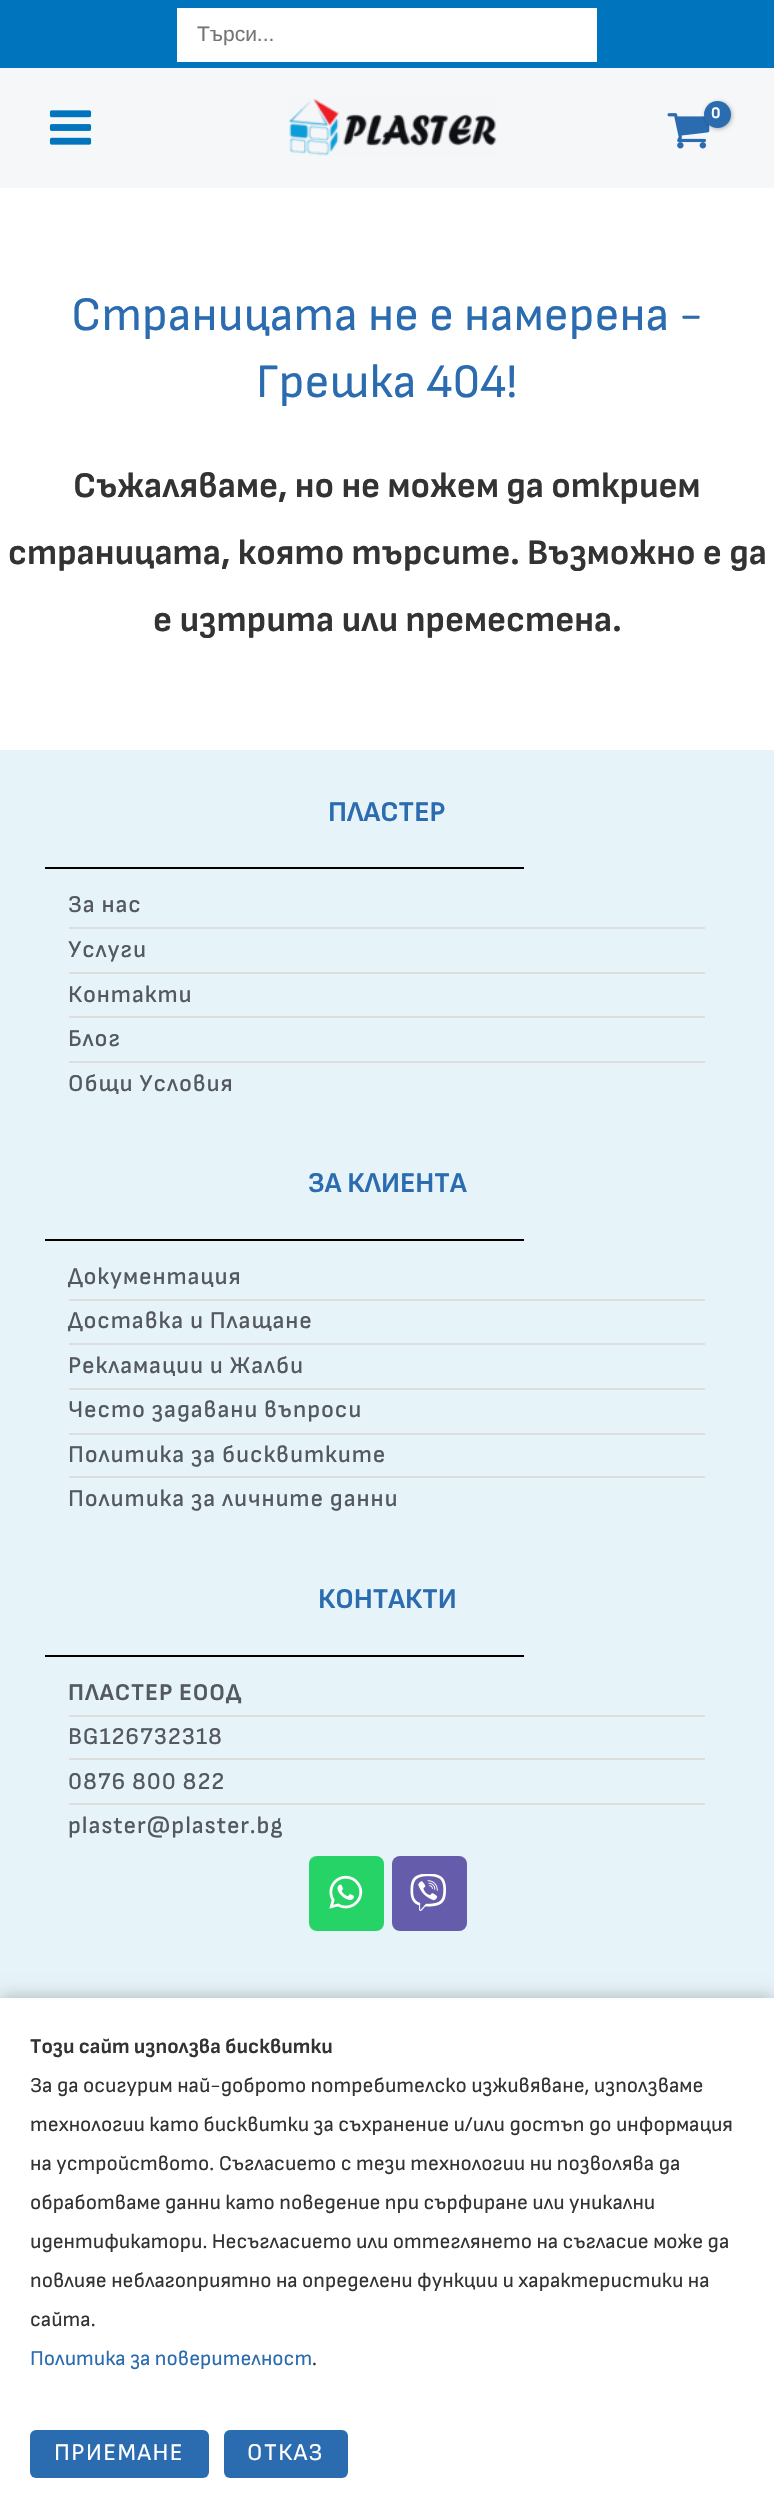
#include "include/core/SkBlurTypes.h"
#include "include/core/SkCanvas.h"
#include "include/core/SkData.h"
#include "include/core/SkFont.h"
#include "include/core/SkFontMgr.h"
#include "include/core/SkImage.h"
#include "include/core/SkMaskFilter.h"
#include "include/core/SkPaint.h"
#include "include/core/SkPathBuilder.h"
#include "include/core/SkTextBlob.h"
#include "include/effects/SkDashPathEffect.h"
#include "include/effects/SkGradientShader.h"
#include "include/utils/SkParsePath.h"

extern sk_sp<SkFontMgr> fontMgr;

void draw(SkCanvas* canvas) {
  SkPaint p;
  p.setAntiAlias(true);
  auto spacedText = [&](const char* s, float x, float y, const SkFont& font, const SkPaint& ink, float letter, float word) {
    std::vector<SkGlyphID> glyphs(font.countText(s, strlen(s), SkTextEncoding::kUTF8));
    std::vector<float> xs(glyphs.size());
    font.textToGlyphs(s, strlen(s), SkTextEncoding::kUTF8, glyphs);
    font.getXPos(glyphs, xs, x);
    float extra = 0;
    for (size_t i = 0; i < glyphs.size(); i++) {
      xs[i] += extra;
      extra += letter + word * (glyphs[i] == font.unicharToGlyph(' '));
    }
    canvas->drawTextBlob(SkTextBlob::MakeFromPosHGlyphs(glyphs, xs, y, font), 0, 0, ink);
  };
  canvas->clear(SK_ColorWHITE);
  p.setColor(SkColorSetRGB(0, 117, 190));
  canvas->drawRect(SkRect::MakeLTRB(0, 0, 774, 68), p);
  p.setColor(SK_ColorWHITE);
  canvas->drawRect(SkRect::MakeLTRB(177, 8, 597, 62), p);
  p.setColor(SkColorSetRGB(245, 247, 249));
  canvas->drawRect(SkRect::MakeLTRB(0, 68, 774, 188), p);
  canvas->drawImageRect(SkImages::DeferredFromEncodedData(SkData::MakeFromFileName("images/1.png")), SkRect::MakeLTRB(49, 110, 92, 145), SkSamplingOptions());
  canvas->drawImageRect(SkImages::DeferredFromEncodedData(SkData::MakeFromFileName("images/2.png")), SkRect::MakeLTRB(289, 98, 497, 156), SkSamplingOptions());
  canvas->drawImageRect(SkImages::DeferredFromEncodedData(SkData::MakeFromFileName("images/3.png")), SkRect::MakeLTRB(667, 113, 710, 149), SkSamplingOptions());
  p.setColor(SkColorSetARGB(77, 0, 0, 0));
  p.setMaskFilter(SkMaskFilter::MakeBlur(kNormal_SkBlurStyle, 2));
  canvas->drawRoundRect(SkRect::MakeLTRB(705, 102, 732, 129), 13.5f, 13.5f, p);
  p.setMaskFilter(nullptr);
  p.setColor(SkColorSetRGB(43, 108, 176));
  canvas->drawCircle(717.5f, 114.5f, 13.5f, p);
  p.setColor(SkColorSetRGB(230, 243, 248));
  canvas->drawRect(SkRect::MakeLTRB(0, 750, 774, 1998), p);
  p.setColor(SK_ColorBLACK);
  canvas->drawRect(SkRect::MakeLTRB(45, 867, 524, 869), p);
  p.setColor(SkColorSetRGB(221, 221, 221));
  canvas->drawRect(SkRect::MakeLTRB(69, 927, 705, 929), p);
  canvas->drawRect(SkRect::MakeLTRB(69, 972, 705, 974), p);
  canvas->drawRect(SkRect::MakeLTRB(69, 1016, 705, 1018), p);
  canvas->drawRect(SkRect::MakeLTRB(69, 1061, 705, 1063), p);
  p.setColor(SK_ColorBLACK);
  canvas->drawRect(SkRect::MakeLTRB(45, 1239, 524, 1241), p);
  p.setColor(SkColorSetRGB(221, 221, 221));
  canvas->drawRect(SkRect::MakeLTRB(69, 1299, 705, 1301), p);
  canvas->drawRect(SkRect::MakeLTRB(69, 1343, 705, 1345), p);
  canvas->drawRect(SkRect::MakeLTRB(69, 1388, 705, 1390), p);
  canvas->drawRect(SkRect::MakeLTRB(69, 1433, 705, 1435), p);
  canvas->drawRect(SkRect::MakeLTRB(69, 1476, 705, 1478), p);
  p.setColor(SK_ColorBLACK);
  canvas->drawRect(SkRect::MakeLTRB(45, 1655, 524, 1657), p);
  p.setColor(SkColorSetRGB(221, 221, 221));
  canvas->drawRect(SkRect::MakeLTRB(69, 1715, 705, 1717), p);
  canvas->drawRect(SkRect::MakeLTRB(69, 1758, 705, 1760), p);
  canvas->drawRect(SkRect::MakeLTRB(69, 1803, 705, 1805), p);
  p.setColor(SkColorSetRGB(37, 211, 102));
  canvas->drawRoundRect(SkRect::MakeLTRB(309, 1856, 384, 1931), 8, 8, p);
  canvas->drawImageRect(SkImages::DeferredFromEncodedData(SkData::MakeFromFileName("images/4.png")), SkRect::MakeLTRB(329, 1875, 363, 1909), SkSamplingOptions());
  p.setColor(SkColorSetRGB(102, 92, 172));
  canvas->drawRoundRect(SkRect::MakeLTRB(392, 1856, 467, 1931), 8, 8, p);
  canvas->drawImageRect(SkImages::DeferredFromEncodedData(SkData::MakeFromFileName("images/5.png")), SkRect::MakeLTRB(410, 1874, 446, 1911), SkSamplingOptions());
  p.setColor(SkColorSetARGB(51, 0, 0, 0));
  p.setMaskFilter(SkMaskFilter::MakeBlur(kNormal_SkBlurStyle, 7.5f));
  canvas->drawRect(SkRect::MakeLTRB(0, 1995, 774, 2505), p);
  p.setMaskFilter(nullptr);
  p.setColor(SK_ColorWHITE);
  canvas->drawRect(SkRect::MakeLTRB(0, 1998, 774, 2508), p);
  p.setColor(SkColorSetRGB(43, 108, 176));
  canvas->drawRoundRect(SkRect::MakeLTRB(30, 2430, 209, 2478), 6, 6, p);
  canvas->drawRoundRect(SkRect::MakeLTRB(224, 2430, 348, 2478), 6, 6, p);
  SkFont font1(fontMgr->matchFamilyStyle("Liberation Sans", SkFontStyle::Normal()), 21);
  font1.setSubpixel(true);
  p.setColor(SkColorSetRGB(117, 117, 117));
  canvas->drawString("Търси...", 197, 41, font1, p);
  SkFont font2(fontMgr->matchFamilyStyle("Sofia Sans", SkFontStyle::Bold()), 16);
  font2.setSubpixel(true);
  p.setColor(SK_ColorWHITE);
  spacedText("0", 711, 118, font2, p, -1, 0);
  SkFont font3(fontMgr->matchFamilyStyle("Sofia Sans", SkFontStyle::Normal()), 48);
  font3.setSubpixel(true);
  p.setColor(SkColorSetRGB(43, 108, 176));
  canvas->drawString("Страницата не е намерена -", 71, 330, font3, p);
  canvas->drawString("Грешка 404!", 256, 397, font3, p);
  SkFont font4(fontMgr->matchFamilyStyle("Sofia Sans", SkFontStyle::Bold()), 36);
  font4.setSubpixel(true);
  p.setColor(SkColorSetRGB(51, 51, 51));
  canvas->drawString("Съжаляваме, но не можем да открием", 73, 497, font4, p);
  canvas->drawString("страницата, която търсите. Възможно е да", 8, 564, font4, p);
  canvas->drawString("е изтрита или преместена.", 153, 631, font4, p);
  SkFont font5(fontMgr->matchFamilyStyle("Sofia Sans", SkFontStyle::Bold()), 28.5f);
  font5.setSubpixel(true);
  p.setColor(SkColorSetRGB(43, 108, 176));
  canvas->drawString("ПЛАСТЕР", 328, 821, font5, p);
  SkFont font6(fontMgr->matchFamilyStyle("Sofia Sans", SkFontStyle(500, SkFontStyle::kNormal_Width, SkFontStyle::kUpright_Slant)), 24);
  font6.setSubpixel(true);
  p.setColor(SkColorSetRGB(84, 89, 95));
  spacedText("За нас", 68, 912, font6, p, 0.9f, 0);
  spacedText("Услуги", 68, 957, font6, p, 0.9f, 0);
  spacedText("Контакти", 68, 1002, font6, p, 0.9f, 0);
  spacedText("Блог", 68, 1046, font6, p, 0.9f, 0);
  spacedText("Общи Условия", 68, 1091, font6, p, 0.9f, 0);
  p.setColor(SkColorSetRGB(43, 108, 176));
  canvas->drawString("ЗА КЛИЕНТА", 308, 1192, font5, p);
  p.setColor(SkColorSetRGB(84, 89, 95));
  spacedText("Документация", 68, 1284, font6, p, 0.9f, 0);
  spacedText("Доставка и Плащане", 68, 1328, font6, p, 0.9f, 0);
  spacedText("Рекламации и Жалби", 68, 1373, font6, p, 0.9f, 0);
  spacedText("Често задавани въпроси", 68, 1417, font6, p, 0.9f, 0);
  spacedText("Политика за бисквитките", 68, 1462, font6, p, 0.9f, 0);
  spacedText("Политика за личните данни", 68, 1506, font6, p, 0.9f, 0);
  p.setColor(SkColorSetRGB(43, 108, 176));
  canvas->drawString("КОНТАКТИ", 318, 1608, font5, p);
  SkFont font7(fontMgr->matchFamilyStyle("Sofia Sans", SkFontStyle::Bold()), 24);
  font7.setSubpixel(true);
  p.setColor(SkColorSetRGB(84, 89, 95));
  spacedText("ПЛАСТЕР ЕООД", 68, 1700, font7, p, 0.9f, 0);
  spacedText("BG126732318", 68, 1744, font6, p, 0.9f, 0);
  spacedText("0876 800 822", 68, 1789, font6, p, 0.9f, 0);
  spacedText("plaster@plaster.bg", 68, 1833, font6, p, 0.9f, 0);
  SkFont font8(fontMgr->matchFamilyStyle("Sofia Sans", SkFontStyle::Bold()), 21);
  font8.setSubpixel(true);
  p.setColor(SkColorSetRGB(51, 51, 51));
  canvas->drawString("Този сайт използва бисквитки", 30, 2053, font8, p);
  SkFont font9(fontMgr->matchFamilyStyle("Sofia Sans", SkFontStyle::Normal()), 21);
  font9.setSubpixel(true);
  canvas->drawString("За да осигурим най-доброто потребителско изживяване, използваме", 30, 2092, font9, p);
  canvas->drawString("технологии като бисквитки за съхранение и/или достъп до информация", 30, 2131, font9, p);
  canvas->drawString("на устройството. Съгласието с тези технологии ни позволява да", 30, 2170, font9, p);
  canvas->drawString("обработваме данни като поведение при сърфиране или уникални", 30, 2209, font9, p);
  canvas->drawString("идентификатори. Несъгласието или оттеглянето на съгласие може да", 30, 2248, font9, p);
  canvas->drawString("повлияе неблагоприятно на определени функции и характеристики на", 30, 2287, font9, p);
  canvas->drawString("сайта.", 30, 2326, font9, p);
  p.setColor(SkColorSetRGB(43, 108, 176));
  canvas->drawString("Политика за поверителност", 30, 2365, font9, p);
  p.setColor(SkColorSetRGB(51, 51, 51));
  canvas->drawString(".", 312, 2365, font9, p);
  SkFont font10(fontMgr->matchFamilyStyle("Sofia Sans", SkFontStyle::Normal()), 24);
  font10.setSubpixel(true);
  p.setColor(SK_ColorWHITE);
  spacedText("ПРИЕМАНЕ", 54, 2460, font10, p, 1.5f, 0);
  spacedText("ОТКАЗ", 247, 2460, font10, p, 1.5f, 0);
}
